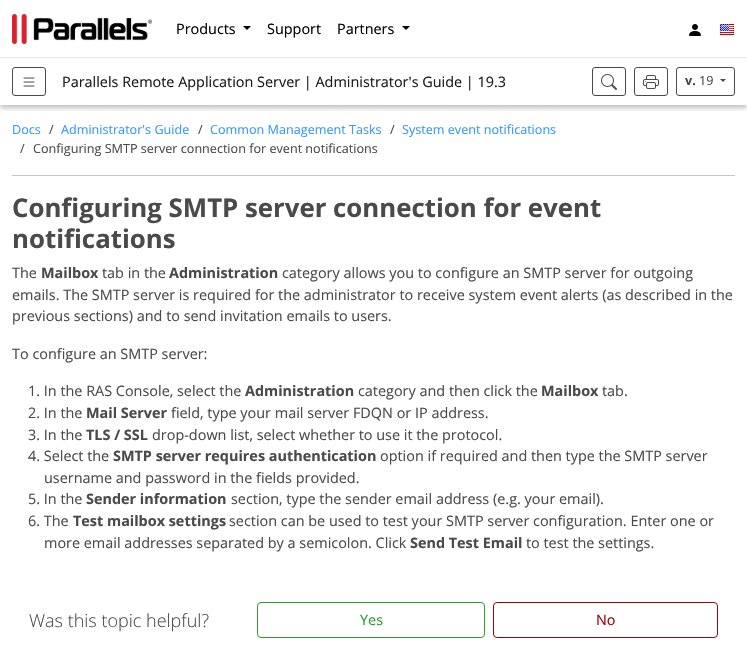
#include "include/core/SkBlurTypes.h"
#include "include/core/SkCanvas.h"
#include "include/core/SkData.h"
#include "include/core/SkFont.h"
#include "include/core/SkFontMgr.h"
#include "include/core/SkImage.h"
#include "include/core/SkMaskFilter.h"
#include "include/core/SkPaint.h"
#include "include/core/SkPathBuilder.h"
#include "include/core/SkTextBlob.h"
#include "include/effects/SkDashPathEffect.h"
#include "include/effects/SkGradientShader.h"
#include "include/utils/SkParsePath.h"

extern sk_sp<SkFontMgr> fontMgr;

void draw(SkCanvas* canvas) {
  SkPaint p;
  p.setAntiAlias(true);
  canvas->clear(SK_ColorWHITE);
  canvas->save();
  canvas->clipRect(SkRect::MakeLTRB(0, 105, 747, 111));
  p.setColor(SkColorSetARGB(64, 0, 0, 0));
  p.setMaskFilter(SkMaskFilter::MakeBlur(kNormal_SkBlurStyle, 2.5f));
  canvas->drawRect(SkRect::MakeLTRB(0, 61, 747, 108), p);
  p.setMaskFilter(nullptr);
  canvas->restore();
  p.setColor(SkColorSetRGB(230, 230, 230));
  canvas->drawRect(SkRect::MakeLTRB(0, 57, 747, 58), p);
  canvas->drawImageRect(SkImages::DeferredFromEncodedData(SkData::MakeFromFileName("images/1.png")), SkRect::MakeLTRB(12, 14, 152, 44), SkSamplingOptions());
  p.setColor(SK_ColorBLACK);
  canvas->drawPath(SkPathBuilder().moveTo(243, 26).lineTo(251, 26).lineTo(247, 30).close().detach(), p);
  canvas->drawPath(SkPathBuilder().moveTo(402, 26).lineTo(410, 26).lineTo(406, 30).close().detach(), p);
  canvas->drawImageRect(SkImages::DeferredFromEncodedData(SkData::MakeFromFileName("images/2.png")), SkRect::MakeLTRB(689, 24, 701, 36), SkSamplingOptions());
  canvas->drawImageRect(SkImages::DeferredFromEncodedData(SkData::MakeFromFileName("images/3.png")), SkRect::MakeLTRB(719, 24, 735, 37), SkSamplingOptions());
  p.setStyle(SkPaint::kStroke_Style);
  p.setStrokeWidth(1);
  p.setColor(SkColorSetRGB(74, 74, 74));
  canvas->drawRoundRect(SkRect::MakeLTRB(12.5f, 67.5f, 45.5f, 95.5f), 2.5f, 2.5f, p);
  canvas->drawImageRect(SkImages::DeferredFromEncodedData(SkData::MakeFromFileName("images/4.png")), SkRect::MakeLTRB(23, 77, 35, 87), SkSamplingOptions());
  canvas->drawRoundRect(SkRect::MakeLTRB(592.5f, 67.5f, 625.5f, 95.5f), 2.5f, 2.5f, p);
  canvas->drawImageRect(SkImages::DeferredFromEncodedData(SkData::MakeFromFileName("images/5.png")), SkRect::MakeLTRB(601, 74, 617, 90), SkSamplingOptions());
  canvas->drawRoundRect(SkRect::MakeLTRB(634.5f, 67.5f, 667.5f, 95.5f), 2.5f, 2.5f, p);
  canvas->drawImageRect(SkImages::DeferredFromEncodedData(SkData::MakeFromFileName("images/6.png")), SkRect::MakeLTRB(643, 75, 659, 89), SkSamplingOptions());
  canvas->drawRoundRect(SkRect::MakeLTRB(676.5f, 67.5f, 734.5f, 95.5f), 2.5f, 2.5f, p);
  p.setStyle(SkPaint::kFill_Style);
  canvas->drawPath(SkPathBuilder().moveTo(720, 79).lineTo(726, 79).lineTo(723, 82).close().detach(), p);
  p.setColor(SkColorSetRGB(200, 200, 200));
  canvas->drawRect(SkRect::MakeLTRB(12, 175, 735, 176), p);
  p.setStyle(SkPaint::kStroke_Style);
  p.setColor(SkColorSetRGB(51, 152, 51));
  canvas->drawRoundRect(SkRect::MakeLTRB(257.5f, 602.5f, 484.5f, 637.5f), 3.5f, 3.5f, p);
  p.setColor(SkColorSetRGB(161, 0, 14));
  canvas->drawRoundRect(SkRect::MakeLTRB(493.5f, 602.5f, 717.5f, 637.5f), 3.5f, 3.5f, p);
  SkFont font1(fontMgr->matchFamilyStyle("Open Sans", SkFontStyle::Normal()), 14.4f);
  font1.setSubpixel(true);
  p.setStyle(SkPaint::kFill_Style);
  p.setColor(SK_ColorBLACK);
  canvas->drawString("Products", 176, 34, font1, p);
  canvas->drawString("Support", 267, 34, font1, p);
  canvas->drawString("Partners", 337, 34, font1, p);
  p.setColor(SkColorSetRGB(26, 26, 26));
  canvas->drawString("Parallels Remote Application Server | Administrator's Guide | 19.3", 62, 87, font1, p);
  SkFont font2(fontMgr->matchFamilyStyle("Open Sans", SkFontStyle::Bold()), 12.6f);
  font2.setSubpixel(true);
  p.setColor(SkColorSetRGB(74, 74, 74));
  canvas->drawString("v.", 685, 85, font2, p);
  SkFont font3(fontMgr->matchFamilyStyle("Open Sans", SkFontStyle::Normal()), 12.6f);
  font3.setSubpixel(true);
  canvas->drawString("19", 699, 85, font3, p);
  p.setColor(SkColorSetRGB(51, 153, 255));
  canvas->drawString("Docs", 12, 134, font3, p);
  p.setColor(SkColorSetRGB(74, 74, 74));
  canvas->drawString("/", 49, 134, font3, p);
  p.setColor(SkColorSetRGB(51, 153, 255));
  canvas->drawString("Administrator's Guide", 61, 134, font3, p);
  p.setColor(SkColorSetRGB(74, 74, 74));
  canvas->drawString("/", 198, 134, font3, p);
  p.setColor(SkColorSetRGB(51, 153, 255));
  canvas->drawString("Common Management Tasks", 210, 134, font3, p);
  p.setColor(SkColorSetRGB(74, 74, 74));
  canvas->drawString("/", 390, 134, font3, p);
  p.setColor(SkColorSetRGB(51, 153, 255));
  canvas->drawString("System event notifications", 402, 134, font3, p);
  p.setColor(SkColorSetRGB(74, 74, 74));
  canvas->drawString("/", 20, 153, font3, p);
  canvas->drawString("Configuring SMTP server connection for event notifications", 33, 153, font3, p);
  SkFont font4(fontMgr->matchFamilyStyle("Open Sans", SkFontStyle::Bold()), 25.8f);
  font4.setSubpixel(true);
  canvas->drawString("Configuring SMTP server connection for event", 12, 217, font4, p);
  canvas->drawString("notifications", 12, 248, font4, p);
  canvas->drawString("The", 12, 278, font1, p);
  SkFont font5(fontMgr->matchFamilyStyle("Open Sans", SkFontStyle::Bold()), 14.4f);
  font5.setSubpixel(true);
  canvas->drawString("Mailbox", 41, 278, font5, p);
  canvas->drawString("tab in the", 102, 278, font1, p);
  canvas->drawString("Administration", 169, 278, font5, p);
  canvas->drawString("category allows you to configure an SMTP server for outgoing", 282, 278, font1, p);
  canvas->drawString("emails. The SMTP server is required for the administrator to receive system event alerts (as described in the", 12, 300, font1, p);
  canvas->drawString("previous sections) and to send invitation emails to users.", 12, 321, font1, p);
  canvas->drawString("To configure an SMTP server:", 12, 359, font1, p);
  canvas->drawString("1. In the RAS Console, select the", 28, 396, font1, p);
  canvas->drawString("Administration", 245, 396, font5, p);
  canvas->drawString("category and then click the", 358, 396, font1, p);
  canvas->drawString("Mailbox", 541, 396, font5, p);
  canvas->drawString("tab.", 602, 396, font1, p);
  canvas->drawString("2. In the", 28, 418, font1, p);
  canvas->drawString("Mail Server", 86, 418, font5, p);
  canvas->drawString("field, type your mail server FDQN or IP address.", 171, 418, font1, p);
  canvas->drawString("3. In the", 28, 440, font1, p);
  canvas->drawString("TLS / SSL", 86, 440, font5, p);
  canvas->drawString("drop-down list, select whether to use it the protocol.", 152, 440, font1, p);
  canvas->drawString("4. Select the", 28, 461, font1, p);
  canvas->drawString("SMTP server requires authentication", 113, 461, font5, p);
  canvas->drawString("option if required and then type the SMTP server", 380, 461, font1, p);
  canvas->drawString("username and password in the fields provided.", 44, 483, font1, p);
  canvas->drawString("5. In the", 28, 504, font1, p);
  canvas->drawString("Sender information", 86, 504, font5, p);
  canvas->drawString("section, type the sender email address (e.g. your email).", 231, 504, font1, p);
  canvas->drawString("6. The", 28, 526, font1, p);
  canvas->drawString("Test mailbox settings", 73, 526, font5, p);
  canvas->drawString("section can be used to test your SMTP server configuration. Enter one or", 229, 526, font1, p);
  canvas->drawString("more email addresses separated by a semicolon. Click", 44, 548, font1, p);
  canvas->drawString("Send Test Email", 410, 548, font5, p);
  canvas->drawString("to test the settings.", 526, 548, font1, p);
  SkFont font6(fontMgr->matchFamilyStyle("Open Sans", SkFontStyle(300, SkFontStyle::kNormal_Width, SkFontStyle::kUpright_Slant)), 18);
  font6.setSubpixel(true);
  canvas->drawString("Was this topic helpful?", 29, 627, font6, p);
  p.setColor(SkColorSetRGB(51, 152, 51));
  canvas->drawString("Yes", 360, 625, font1, p);
  p.setColor(SkColorSetRGB(161, 0, 14));
  canvas->drawString("No", 596, 625, font1, p);
}
